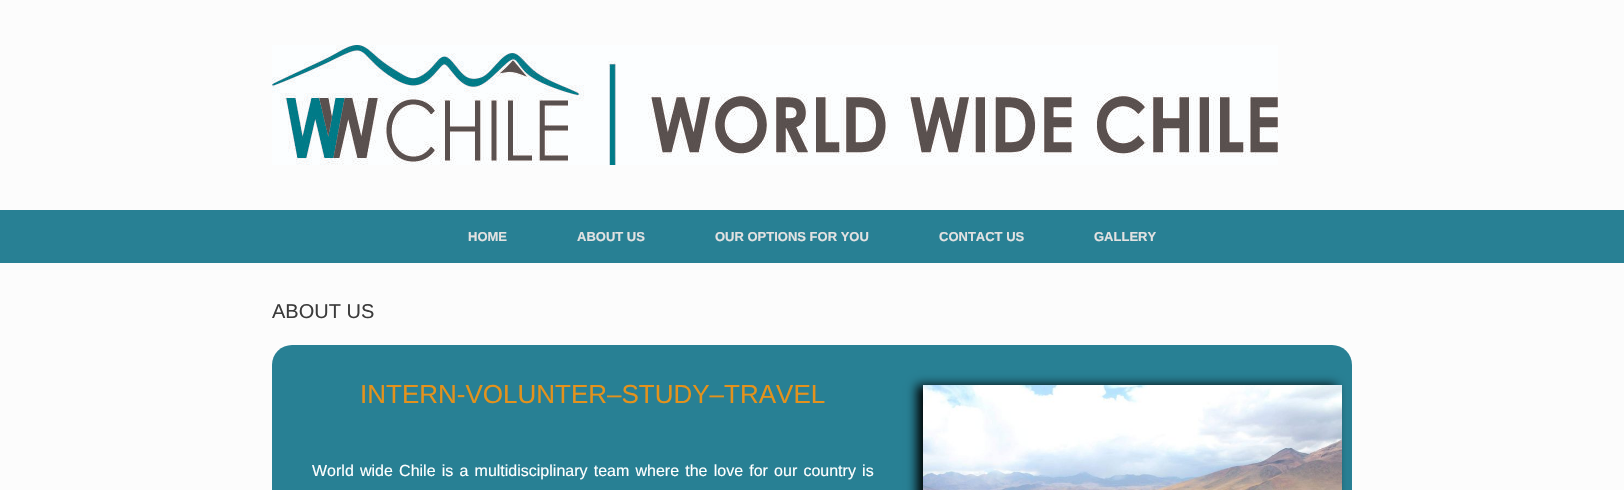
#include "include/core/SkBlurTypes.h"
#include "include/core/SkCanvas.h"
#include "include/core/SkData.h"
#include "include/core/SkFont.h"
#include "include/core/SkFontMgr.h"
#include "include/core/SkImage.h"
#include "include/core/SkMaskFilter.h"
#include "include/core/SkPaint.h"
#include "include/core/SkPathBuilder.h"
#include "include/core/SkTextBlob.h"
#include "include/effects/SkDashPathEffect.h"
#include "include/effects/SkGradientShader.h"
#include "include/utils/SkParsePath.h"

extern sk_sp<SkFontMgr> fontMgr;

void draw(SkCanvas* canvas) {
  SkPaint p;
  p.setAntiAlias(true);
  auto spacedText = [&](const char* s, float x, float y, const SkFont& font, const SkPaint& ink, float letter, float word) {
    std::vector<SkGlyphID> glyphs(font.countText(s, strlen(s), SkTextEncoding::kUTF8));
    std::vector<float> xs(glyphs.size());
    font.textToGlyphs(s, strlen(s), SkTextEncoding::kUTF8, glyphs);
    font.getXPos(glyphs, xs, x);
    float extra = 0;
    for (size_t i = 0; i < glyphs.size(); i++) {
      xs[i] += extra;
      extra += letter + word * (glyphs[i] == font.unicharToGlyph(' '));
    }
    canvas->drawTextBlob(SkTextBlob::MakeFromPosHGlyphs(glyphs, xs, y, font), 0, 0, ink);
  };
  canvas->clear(SkColorSetRGB(252, 252, 252));
  canvas->drawImageRect(SkImages::DeferredFromEncodedData(SkData::MakeFromFileName("images/1.png")), SkRect::MakeLTRB(272, 45, 1278, 165), SkSamplingOptions());
  p.setColor(SkColorSetRGB(40, 128, 148));
  canvas->drawRect(SkRect::MakeLTRB(0, 210, 1624, 263), p);
  canvas->drawRoundRect(SkRect::MakeLTRB(272, 345, 1352, 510), 20, 20, p);
  p.setColor(SkColorSetARGB(250, 0, 0, 0));
  p.setMaskFilter(SkMaskFilter::MakeBlur(kNormal_SkBlurStyle, 5));
  canvas->drawRect(SkRect::MakeLTRB(917, 385, 1336, 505), p);
  p.setMaskFilter(nullptr);
  canvas->drawImageRect(SkImages::DeferredFromEncodedData(SkData::MakeFromFileName("images/2.png")), SkRect::MakeLTRB(923, 385, 1342, 490), SkSamplingOptions());
  SkFont font1(fontMgr->matchFamilyStyle("Liberation Sans", SkFontStyle::Bold()), 13);
  font1.setSubpixel(true);
  p.setColor(SkColorSetRGB(226, 226, 226));
  canvas->drawString("HOME", 468, 241, font1, p);
  canvas->drawString("ABOUT US", 577, 241, font1, p);
  canvas->drawString("OUR OPTIONS FOR YOU", 715, 241, font1, p);
  canvas->drawString("CONTACT US", 939, 241, font1, p);
  canvas->drawString("GALLERY", 1094, 241, font1, p);
  SkFont font2(fontMgr->matchFamilyStyle("Liberation Sans", SkFontStyle::Normal()), 20);
  font2.setSubpixel(true);
  p.setColor(SkColorSetRGB(59, 59, 59));
  canvas->drawString("ABOUT US", 272, 318, font2, p);
  SkFont font3(fontMgr->matchFamilyStyle("Liberation Sans", SkFontStyle::Normal()), 26);
  font3.setSubpixel(true);
  p.setColor(SkColorSetRGB(228, 146, 28));
  canvas->drawString("INTERN-VOLUNTER–STUDY–TRAVEL", 360, 403, font3, p);
  SkFont font4(fontMgr->matchFamilyStyle("Liberation Sans", SkFontStyle::Normal()), 16);
  font4.setSubpixel(true);
  p.setColor(SK_ColorWHITE);
  spacedText("World wide Chile is a multidisciplinary team where the love for our country is", 312, 476, font4, p, 0, 1.75f);
}
